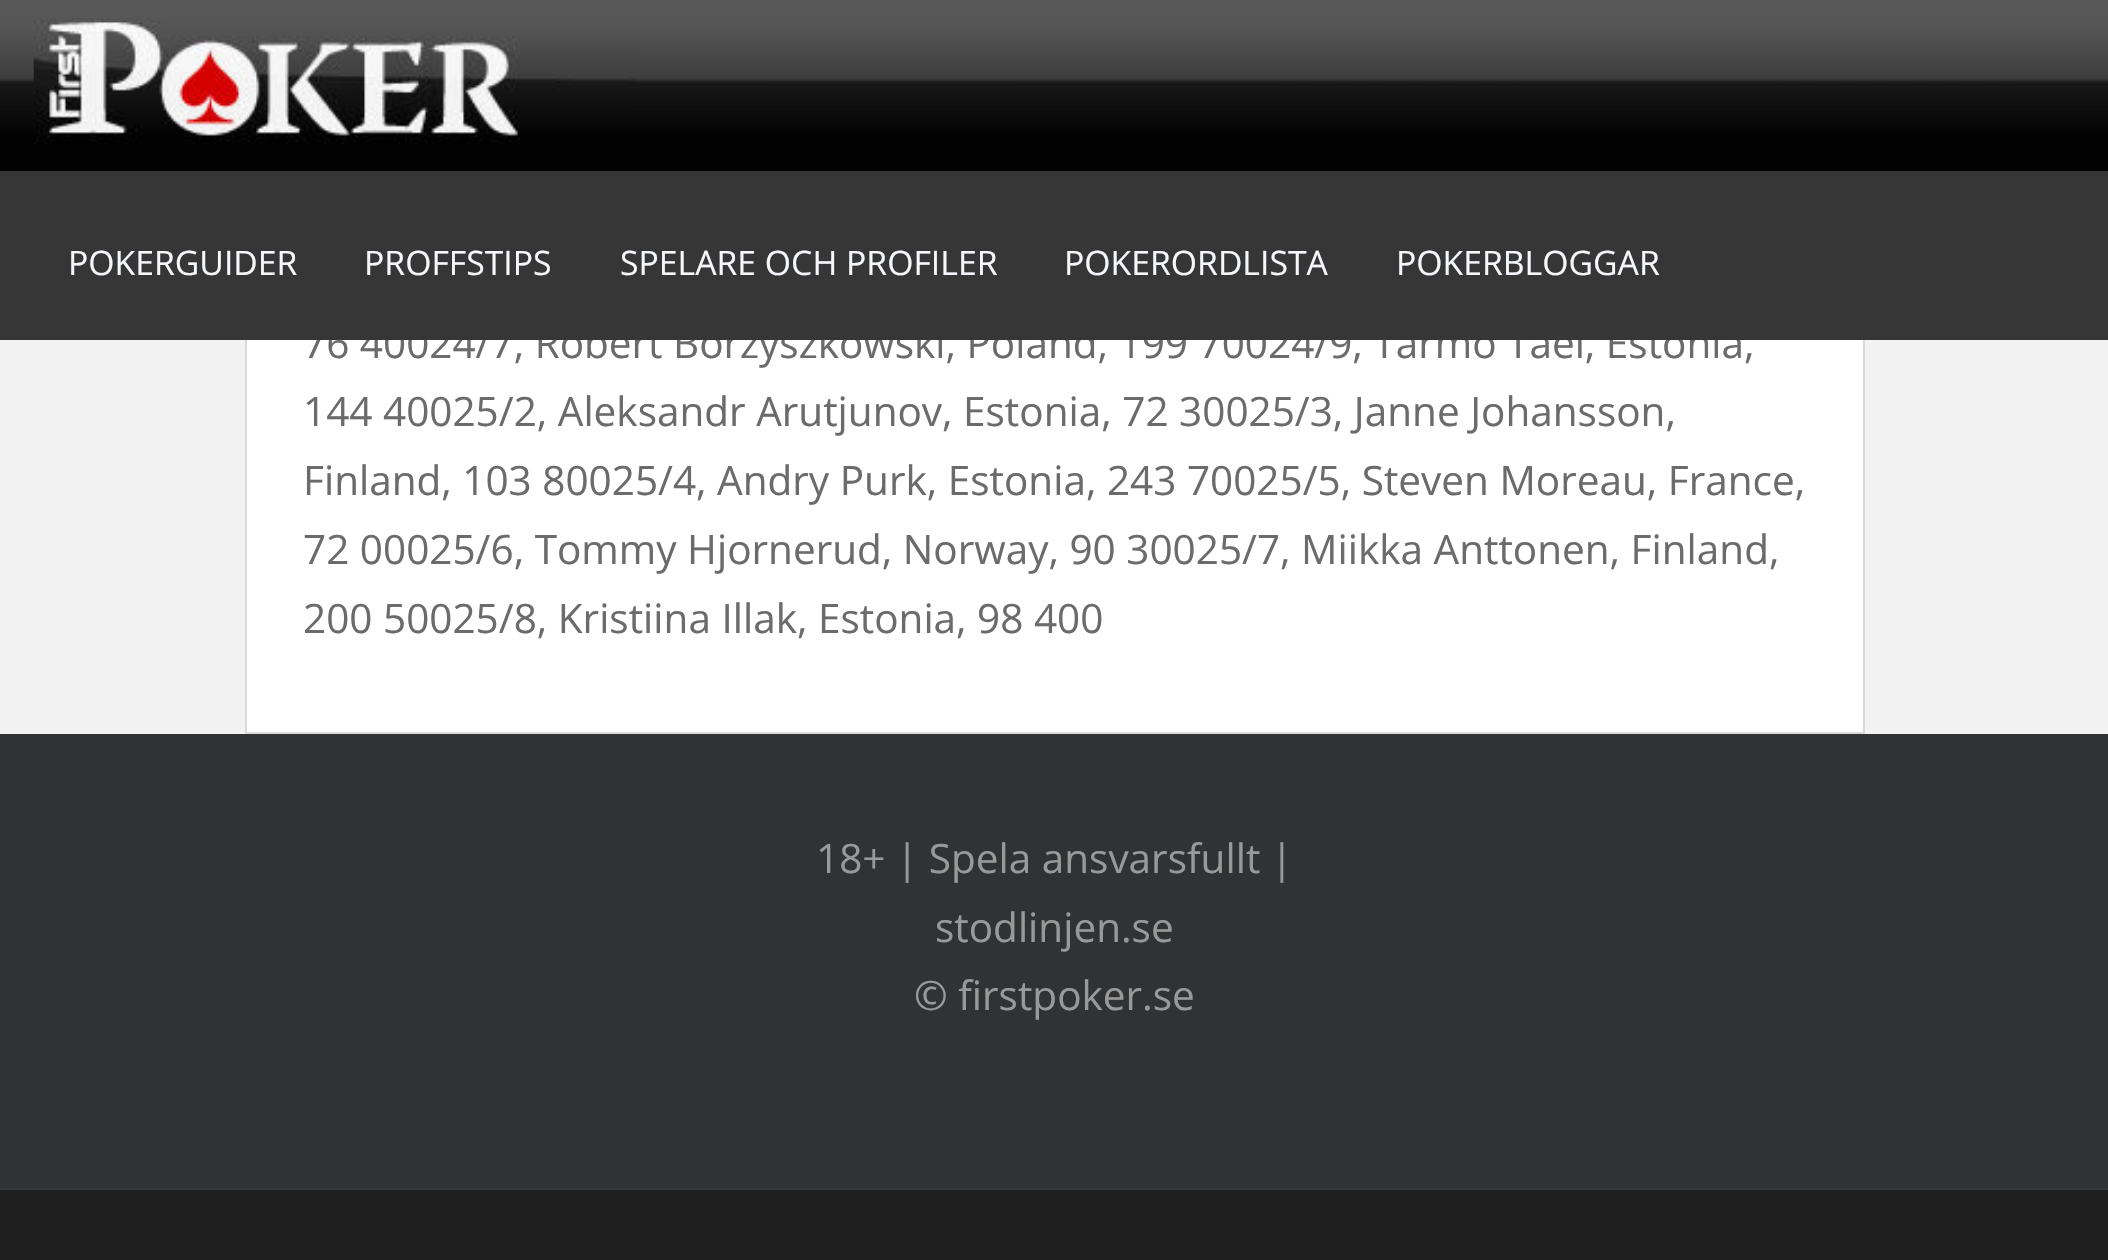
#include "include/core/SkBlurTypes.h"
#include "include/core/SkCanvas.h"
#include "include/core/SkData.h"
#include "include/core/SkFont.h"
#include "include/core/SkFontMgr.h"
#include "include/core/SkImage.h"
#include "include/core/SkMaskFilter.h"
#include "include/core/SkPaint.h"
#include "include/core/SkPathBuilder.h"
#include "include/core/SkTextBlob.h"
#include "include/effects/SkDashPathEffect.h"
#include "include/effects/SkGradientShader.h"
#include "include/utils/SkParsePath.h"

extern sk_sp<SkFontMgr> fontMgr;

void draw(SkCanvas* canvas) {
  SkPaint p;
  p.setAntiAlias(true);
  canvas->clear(SkColorSetRGB(242, 242, 242));
  p.setColor(SK_ColorWHITE);
  canvas->drawRect(SkRect::MakeLTRB(247, 340, 1863, 732), p);
  p.setStyle(SkPaint::kStroke_Style);
  p.setStrokeWidth(2);
  p.setColor(SkColorSetRGB(218, 218, 218));
  canvas->drawRect(SkRect::MakeLTRB(246, -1, 1864, 733), p);
  canvas->drawImageRect(SkImages::DeferredFromEncodedData(SkData::MakeFromFileName("images/1.png")), SkRect::MakeLTRB(0, 0, 2108, 171), SkSamplingOptions());
  canvas->drawImageRect(SkImages::DeferredFromEncodedData(SkData::MakeFromFileName("images/2.png")), SkRect::MakeLTRB(33, 18, 638, 144), SkSamplingOptions());
  p.setStyle(SkPaint::kFill_Style);
  p.setColor(SkColorSetRGB(49, 50, 51));
  canvas->drawRect(SkRect::MakeLTRB(0, 734, 2108, 1188), p);
  p.setColor(SkColorSetRGB(31, 31, 31));
  canvas->drawRect(SkRect::MakeLTRB(0, 1190, 2108, 1260), p);
  p.setColor(SkColorSetRGB(58, 58, 58));
  canvas->drawRect(SkRect::MakeLTRB(0, 1188, 2108, 1190), p);
  SkFont font1(fontMgr->matchFamilyStyle("Open Sans", SkFontStyle::Normal()), 40.5f);
  font1.setSubpixel(true);
  p.setColor(SkColorSetRGB(107, 107, 107));
  canvas->drawString("76 40024/7, Robert Borzyszkowski, Poland, 199 70024/9, Tarmo Tael, Estonia,", 303, 358, font1, p);
  p.setColor(SkColorSetRGB(54, 54, 54));
  canvas->drawRect(SkRect::MakeLTRB(0, 171, 2108, 340), p);
  SkFont font2(fontMgr->matchFamilyStyle("Open Sans", SkFontStyle::Normal()), 33.75f);
  font2.setSubpixel(true);
  p.setColor(SkColorSetRGB(245, 247, 250));
  canvas->drawString("POKERBLOGGAR", 1396, 275, font2, p);
  canvas->drawString("POKERORDLISTA", 1064, 275, font2, p);
  canvas->drawString("SPELARE OCH PROFILER", 620, 275, font2, p);
  canvas->drawString("PROFFSTIPS", 364, 275, font2, p);
  canvas->drawString("POKERGUIDER", 68, 275, font2, p);
  p.setColor(SkColorSetRGB(107, 107, 107));
  canvas->drawString("144 40025/2, Aleksandr Arutjunov, Estonia, 72 30025/3, Janne Johansson,", 303, 426, font1, p);
  canvas->drawString("Finland, 103 80025/4, Andry Purk, Estonia, 243 70025/5, Steven Moreau, France,", 303, 495, font1, p);
  canvas->drawString("72 00025/6, Tommy Hjornerud, Norway, 90 30025/7, Miikka Anttonen, Finland,", 303, 564, font1, p);
  canvas->drawString("200 50025/8, Kristiina Illak, Estonia, 98 400", 303, 633, font1, p);
  p.setColor(SkColorSetRGB(153, 153, 153));
  canvas->drawString("18+ | Spela ansvarsfullt |", 816, 873, font1, p);
  canvas->drawString("stodlinjen.se", 935, 942, font1, p);
  canvas->drawString("© firstpoker.se", 914, 1010, font1, p);
}
